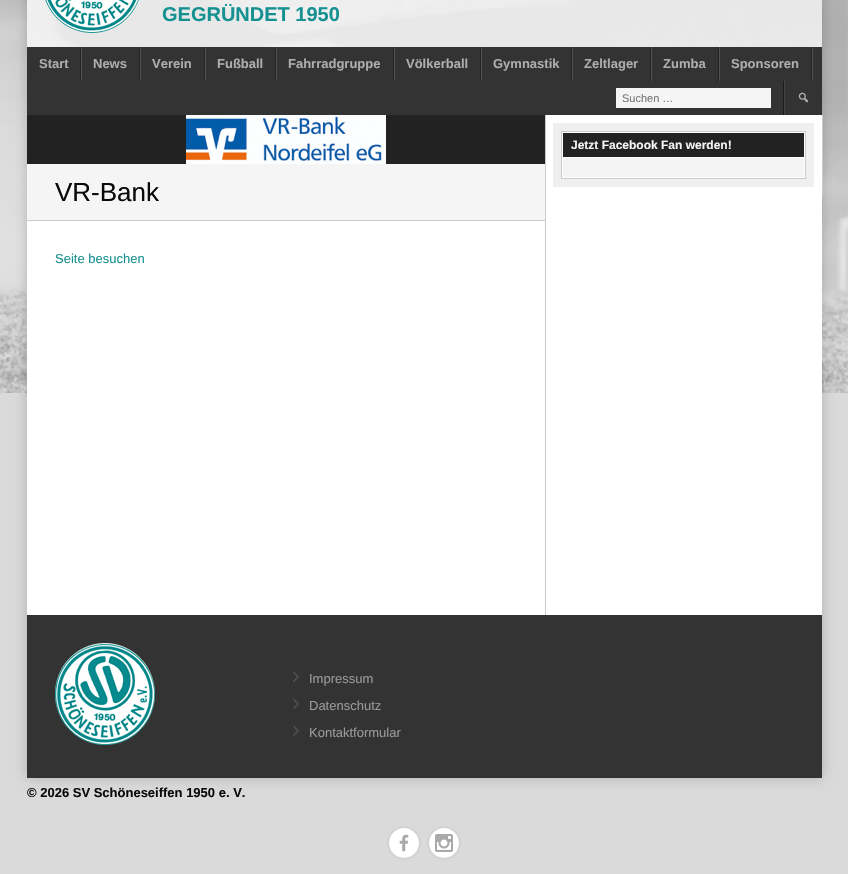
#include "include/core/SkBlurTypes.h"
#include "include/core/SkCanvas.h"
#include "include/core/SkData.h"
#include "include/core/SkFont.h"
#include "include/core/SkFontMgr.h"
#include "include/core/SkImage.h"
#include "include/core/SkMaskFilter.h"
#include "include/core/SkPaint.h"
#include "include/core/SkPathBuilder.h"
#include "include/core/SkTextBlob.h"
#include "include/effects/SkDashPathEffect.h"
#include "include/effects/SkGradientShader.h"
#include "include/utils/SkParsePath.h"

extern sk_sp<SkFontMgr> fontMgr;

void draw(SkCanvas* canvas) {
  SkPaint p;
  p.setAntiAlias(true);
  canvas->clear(SkColorSetRGB(218, 218, 218));
  canvas->drawImageRect(SkImages::DeferredFromEncodedData(SkData::MakeFromFileName("images/1.png")), SkRect::MakeLTRB(0, 0, 848, 393), SkSamplingOptions());
  p.setColor(SkColorSetARGB(51, 0, 0, 0));
  p.setMaskFilter(SkMaskFilter::MakeBlur(kNormal_SkBlurStyle, 6));
  canvas->drawRect(SkRect::MakeLTRB(27, -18, 822, 778), p);
  p.setMaskFilter(nullptr);
  canvas->drawImageRect(SkImages::DeferredFromEncodedData(SkData::MakeFromFileName("images/2.png")), SkRect::MakeLTRB(27, 0, 822, 47), SkSamplingOptions());
  canvas->drawImageRect(SkImages::DeferredFromEncodedData(SkData::MakeFromFileName("images/3.png")), SkRect::MakeLTRB(45, 0, 139, 33), SkSamplingOptions());
  p.setColor(SkColorSetRGB(51, 51, 51));
  canvas->drawRect(SkRect::MakeLTRB(27, 47, 822, 115), p);
  p.setColor(SkColorSetRGB(82, 82, 82));
  canvas->drawRect(SkRect::MakeLTRB(81, 47, 82, 81), p);
  p.setColor(SkColorSetRGB(36, 36, 36));
  canvas->drawRect(SkRect::MakeLTRB(80, 47, 81, 81), p);
  p.setColor(SkColorSetRGB(82, 82, 82));
  canvas->drawRect(SkRect::MakeLTRB(140, 47, 141, 81), p);
  p.setColor(SkColorSetRGB(36, 36, 36));
  canvas->drawRect(SkRect::MakeLTRB(139, 47, 140, 81), p);
  p.setColor(SkColorSetRGB(82, 82, 82));
  canvas->drawRect(SkRect::MakeLTRB(205, 47, 206, 81), p);
  p.setColor(SkColorSetRGB(36, 36, 36));
  canvas->drawRect(SkRect::MakeLTRB(204, 47, 205, 81), p);
  p.setColor(SkColorSetRGB(82, 82, 82));
  canvas->drawRect(SkRect::MakeLTRB(276, 47, 277, 81), p);
  p.setColor(SkColorSetRGB(36, 36, 36));
  canvas->drawRect(SkRect::MakeLTRB(275, 47, 276, 81), p);
  p.setColor(SkColorSetRGB(82, 82, 82));
  canvas->drawRect(SkRect::MakeLTRB(394, 47, 395, 81), p);
  p.setColor(SkColorSetRGB(36, 36, 36));
  canvas->drawRect(SkRect::MakeLTRB(393, 47, 394, 81), p);
  p.setColor(SkColorSetRGB(82, 82, 82));
  canvas->drawRect(SkRect::MakeLTRB(481, 47, 482, 81), p);
  p.setColor(SkColorSetRGB(36, 36, 36));
  canvas->drawRect(SkRect::MakeLTRB(480, 47, 481, 81), p);
  p.setColor(SkColorSetRGB(82, 82, 82));
  canvas->drawRect(SkRect::MakeLTRB(572, 47, 573, 81), p);
  p.setColor(SkColorSetRGB(36, 36, 36));
  canvas->drawRect(SkRect::MakeLTRB(571, 47, 572, 81), p);
  p.setColor(SkColorSetRGB(82, 82, 82));
  canvas->drawRect(SkRect::MakeLTRB(651, 47, 652, 81), p);
  p.setColor(SkColorSetRGB(36, 36, 36));
  canvas->drawRect(SkRect::MakeLTRB(650, 47, 651, 81), p);
  p.setColor(SkColorSetRGB(82, 82, 82));
  canvas->drawRect(SkRect::MakeLTRB(719, 47, 720, 81), p);
  p.setColor(SkColorSetRGB(36, 36, 36));
  canvas->drawRect(SkRect::MakeLTRB(718, 47, 719, 81), p);
  p.setColor(SkColorSetRGB(82, 82, 82));
  canvas->drawRect(SkRect::MakeLTRB(812, 47, 813, 81), p);
  p.setColor(SkColorSetRGB(36, 36, 36));
  canvas->drawRect(SkRect::MakeLTRB(811, 47, 812, 81), p);
  p.setColor(SkColorSetRGB(26, 26, 26));
  canvas->drawRect(SkRect::MakeLTRB(783, 81, 784, 115), p);
  p.setColor(SkColorSetRGB(245, 245, 245));
  canvas->drawRect(SkRect::MakeLTRB(616, 88, 771, 108), p);
  p.setColor(SkColorSetRGB(69, 69, 69));
  canvas->drawRect(SkRect::MakeLTRB(784, 81, 785, 115), p);
  canvas->drawImageRect(SkImages::DeferredFromEncodedData(SkData::MakeFromFileName("images/4.png")), SkRect::MakeLTRB(798, 92, 809, 103), SkSamplingOptions());
  p.setColor(SK_ColorWHITE);
  canvas->drawRect(SkRect::MakeLTRB(27, 115, 822, 615), p);
  p.setColor(SkColorSetRGB(204, 204, 204));
  canvas->drawRect(SkRect::MakeLTRB(822, 115, 823, 195), p);
  p.setStyle(SkPaint::kStroke_Style);
  p.setStrokeWidth(1);
  canvas->drawRect(SkRect::MakeLTRB(561.5f, 131.5f, 805.5f, 178.5f), p);
  p.setStyle(SkPaint::kFill_Style);
  p.setColor(SkColorSetRGB(34, 34, 34));
  canvas->drawRect(SkRect::MakeLTRB(563, 133, 804, 157), p);
  p.setColor(SkColorSetRGB(244, 244, 244));
  canvas->drawRect(SkRect::MakeLTRB(563, 158, 804, 177), p);
  p.setStyle(SkPaint::kStroke_Style);
  p.setStrokeWidth(8);
  p.setColor(SkColorSetRGB(239, 239, 239));
  canvas->drawRect(SkRect::MakeLTRB(557, 127, 810, 183), p);
  p.setStyle(SkPaint::kFill_Style);
  p.setColor(SkColorSetRGB(204, 204, 204));
  canvas->drawRect(SkRect::MakeLTRB(545, 115, 546, 615), p);
  p.setColor(SkColorSetRGB(245, 245, 245));
  canvas->drawRect(SkRect::MakeLTRB(27, 164, 545, 220), p);
  p.setColor(SkColorSetRGB(204, 204, 204));
  canvas->drawRect(SkRect::MakeLTRB(27, 220, 545, 221), p);
  p.setColor(SkColorSetRGB(34, 34, 34));
  canvas->drawRect(SkRect::MakeLTRB(27, 115, 545, 164), p);
  canvas->drawImageRect(SkImages::DeferredFromEncodedData(SkData::MakeFromFileName("images/5.png")), SkRect::MakeLTRB(186, 115, 386, 164), SkSamplingOptions());
  p.setColor(SkColorSetARGB(38, 0, 0, 0));
  p.setMaskFilter(SkMaskFilter::MakeBlur(kNormal_SkBlurStyle, 1.5f));
  canvas->drawRoundRect(SkRect::MakeLTRB(389, 828, 419, 858), 15, 15, p);
  p.setMaskFilter(nullptr);
  p.setColor(SK_ColorWHITE);
  canvas->drawCircle(404, 843, 15, p);
  canvas->drawImageRect(SkImages::DeferredFromEncodedData(SkData::MakeFromFileName("images/6.png")), SkRect::MakeLTRB(399, 834, 409, 852), SkSamplingOptions());
  p.setColor(SkColorSetARGB(38, 0, 0, 0));
  p.setMaskFilter(SkMaskFilter::MakeBlur(kNormal_SkBlurStyle, 1.5f));
  canvas->drawRoundRect(SkRect::MakeLTRB(429, 828, 459, 858), 15, 15, p);
  p.setMaskFilter(nullptr);
  p.setColor(SK_ColorWHITE);
  canvas->drawCircle(444, 843, 15, p);
  canvas->drawImageRect(SkImages::DeferredFromEncodedData(SkData::MakeFromFileName("images/7.png")), SkRect::MakeLTRB(435, 834, 453, 852), SkSamplingOptions());
  p.setColor(SkColorSetRGB(51, 51, 51));
  canvas->drawRect(SkRect::MakeLTRB(27, 615, 822, 778), p);
  canvas->drawImageRect(SkImages::DeferredFromEncodedData(SkData::MakeFromFileName("images/8.png")), SkRect::MakeLTRB(55, 643, 155, 745), SkSamplingOptions());
  canvas->drawImageRect(SkImages::DeferredFromEncodedData(SkData::MakeFromFileName("images/9.png")), SkRect::MakeLTRB(293, 671, 299, 683), SkSamplingOptions());
  canvas->drawImageRect(SkImages::DeferredFromEncodedData(SkData::MakeFromFileName("images/9.png")), SkRect::MakeLTRB(293, 698, 299, 710), SkSamplingOptions());
  canvas->drawImageRect(SkImages::DeferredFromEncodedData(SkData::MakeFromFileName("images/9.png")), SkRect::MakeLTRB(293, 725, 299, 737), SkSamplingOptions());
  SkFont font1(fontMgr->matchFamilyStyle("Liberation Sans", SkFontStyle::Bold()), 20);
  font1.setSubpixel(true);
  p.setColor(SkColorSetRGB(22, 145, 145));
  canvas->drawString("GEGRÜNDET 1950", 162, 21, font1, p);
  SkFont font2(fontMgr->matchFamilyStyle("Liberation Sans", SkFontStyle::Bold()), 13);
  font2.setSubpixel(true);
  p.setColor(SkColorSetRGB(173, 173, 173));
  canvas->drawString("Start", 39, 68, font2, p);
  canvas->drawString("News", 93, 68, font2, p);
  canvas->drawString("Verein", 152, 68, font2, p);
  canvas->drawString("Fußball", 217, 68, font2, p);
  canvas->drawString("Fahrradgruppe", 288, 68, font2, p);
  canvas->drawString("Völkerball", 406, 68, font2, p);
  canvas->drawString("Gymnastik", 493, 68, font2, p);
  canvas->drawString("Zeltlager", 584, 68, font2, p);
  canvas->drawString("Zumba", 663, 68, font2, p);
  canvas->drawString("Sponsoren", 731, 68, font2, p);
  SkFont font3(fontMgr->matchFamilyStyle("Liberation Sans", SkFontStyle::Normal()), 11);
  font3.setSubpixel(true);
  p.setColor(SkColorSetRGB(117, 117, 117));
  canvas->drawString("Suchen …", 622, 102, font3, p);
  SkFont font4(fontMgr->matchFamilyStyle("Liberation Sans", SkFontStyle::Bold()), 12);
  font4.setSubpixel(true);
  p.setColor(SkColorSetRGB(244, 244, 244));
  canvas->drawString("Jetzt Facebook Fan werden!", 571, 149, font4, p);
  SkFont font5(fontMgr->matchFamilyStyle("Liberation Sans", SkFontStyle::Normal()), 26);
  font5.setSubpixel(true);
  p.setColor(SkColorSetRGB(10, 10, 10));
  canvas->drawString("VR-Bank", 55, 201, font5, p);
  SkFont font6(fontMgr->matchFamilyStyle("Liberation Sans", SkFontStyle::Normal()), 13);
  font6.setSubpixel(true);
  p.setColor(SkColorSetRGB(22, 145, 145));
  canvas->drawString("Seite besuchen", 55, 263, font6, p);
  p.setColor(SkColorSetRGB(153, 153, 153));
  canvas->drawString("Impressum", 309, 683, font6, p);
  canvas->drawString("Datenschutz", 309, 710, font6, p);
  canvas->drawString("Kontaktformular", 309, 737, font6, p);
  p.setColor(SkColorSetRGB(10, 10, 10));
  canvas->drawString("© 2026 SV Schöneseiffen 1950 e. V.", 27, 797, font2, p);
}
